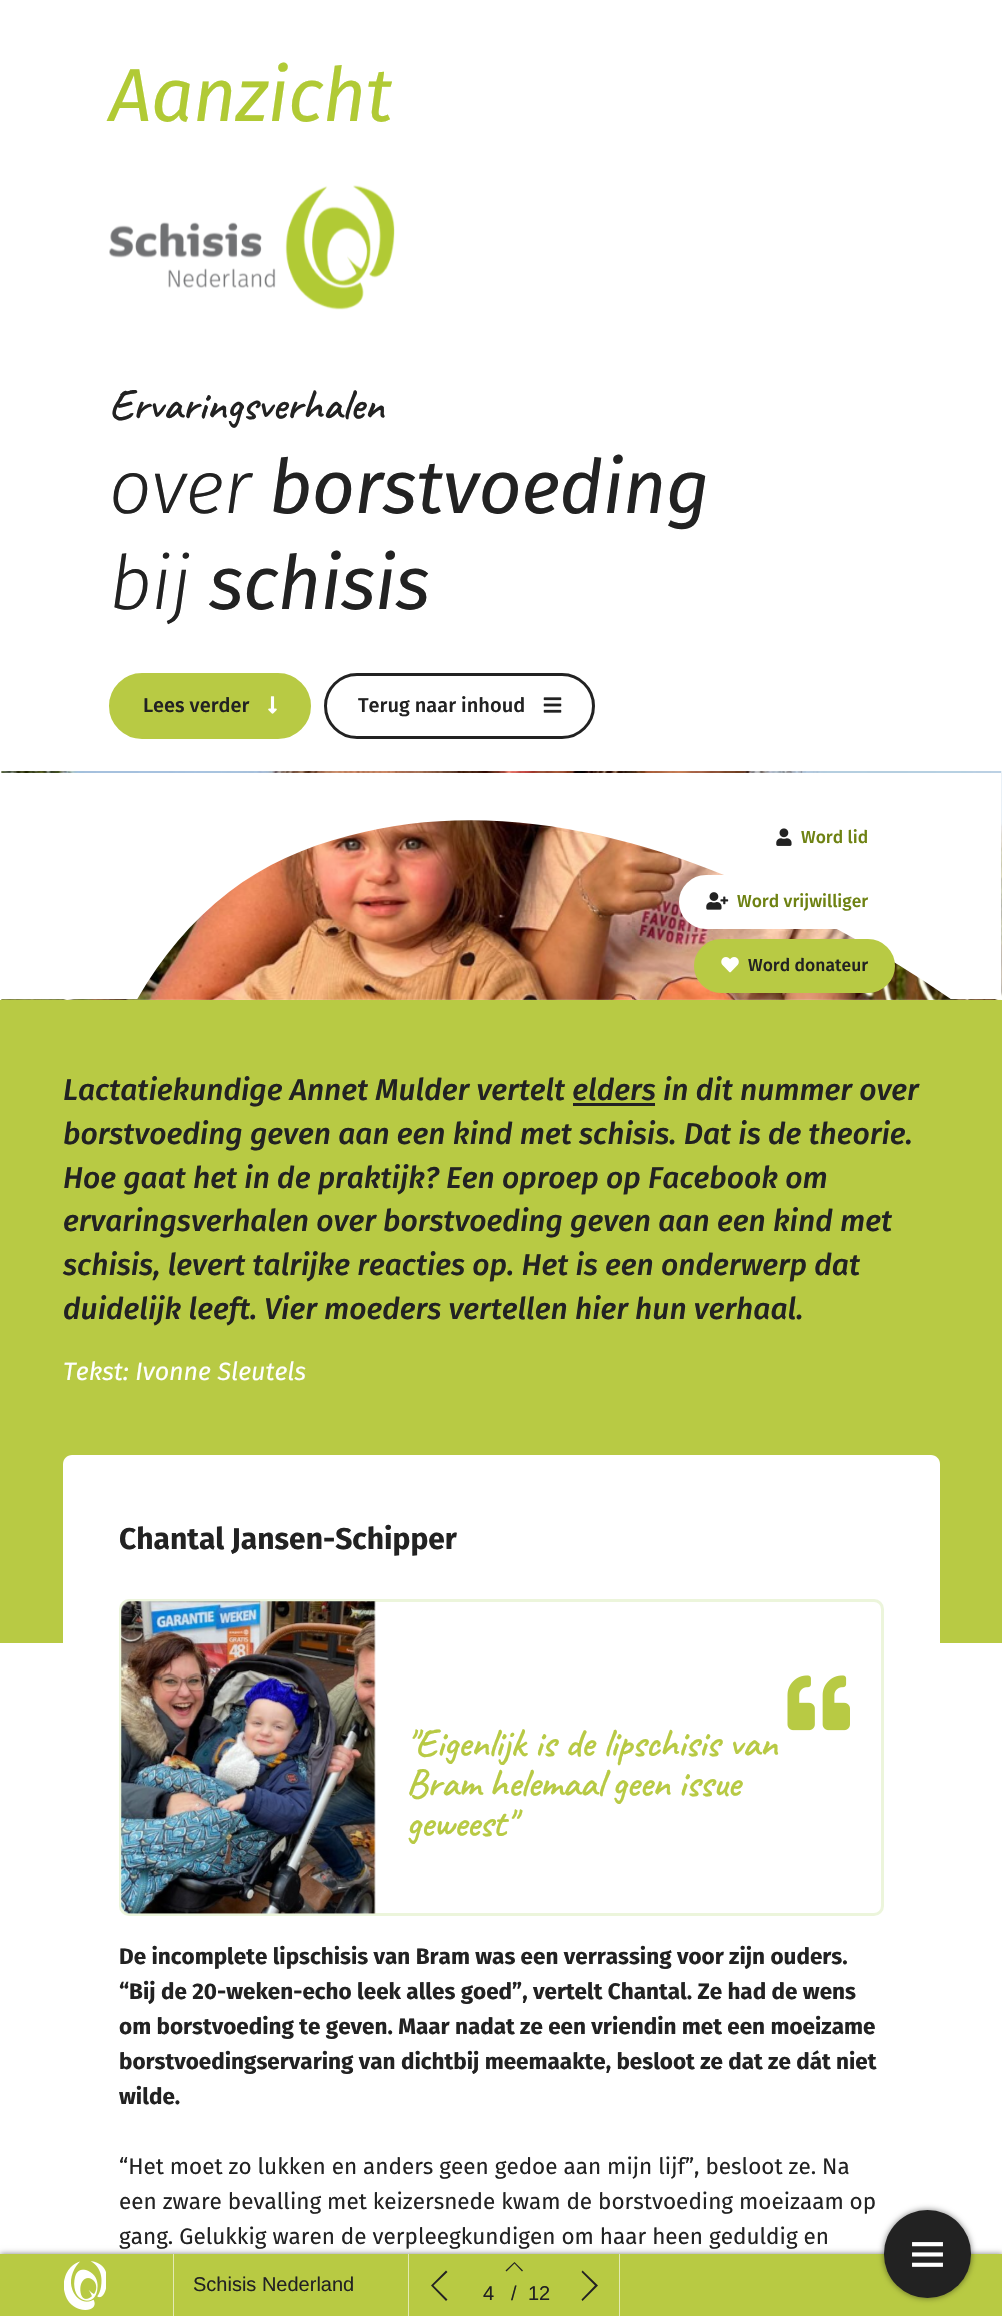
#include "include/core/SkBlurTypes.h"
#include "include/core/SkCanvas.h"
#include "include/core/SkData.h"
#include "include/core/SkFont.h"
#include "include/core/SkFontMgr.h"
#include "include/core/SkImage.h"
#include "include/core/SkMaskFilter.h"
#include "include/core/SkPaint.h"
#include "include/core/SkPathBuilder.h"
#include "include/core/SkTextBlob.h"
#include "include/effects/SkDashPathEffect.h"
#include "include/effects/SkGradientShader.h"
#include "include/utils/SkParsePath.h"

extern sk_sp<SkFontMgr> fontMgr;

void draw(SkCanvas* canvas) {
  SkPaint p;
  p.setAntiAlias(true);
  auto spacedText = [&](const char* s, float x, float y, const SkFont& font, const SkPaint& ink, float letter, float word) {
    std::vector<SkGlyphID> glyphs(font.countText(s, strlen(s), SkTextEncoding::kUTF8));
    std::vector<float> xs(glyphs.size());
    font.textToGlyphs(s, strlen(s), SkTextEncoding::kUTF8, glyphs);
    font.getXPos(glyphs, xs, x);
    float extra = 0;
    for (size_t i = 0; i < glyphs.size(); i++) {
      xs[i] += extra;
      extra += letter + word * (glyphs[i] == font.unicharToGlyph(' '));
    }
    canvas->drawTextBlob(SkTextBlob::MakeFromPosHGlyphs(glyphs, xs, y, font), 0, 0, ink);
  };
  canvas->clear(SK_ColorWHITE);
  canvas->drawImageRect(SkImages::DeferredFromEncodedData(SkData::MakeFromFileName("images/1.png")), SkRect::MakeLTRB(109, 185, 395, 310), SkSamplingOptions());
  p.setColor(SkColorSetRGB(184, 202, 68));
  canvas->drawRoundRect(SkRect::MakeLTRB(110.5f, 674.5f, 309.5f, 737.5f), 31.5f, 31.5f, p);
  p.setStyle(SkPaint::kStroke_Style);
  p.setStrokeWidth(3);
  canvas->drawRoundRect(SkRect::MakeLTRB(110.5f, 674.5f, 309.5f, 737.5f), 31.5f, 31.5f, p);
  canvas->drawImageRect(SkImages::DeferredFromEncodedData(SkData::MakeFromFileName("images/2.png")), SkRect::MakeLTRB(268, 696, 277, 714), SkSamplingOptions());
  p.setColor(SkColorSetRGB(34, 34, 34));
  canvas->drawRoundRect(SkRect::MakeLTRB(325.5f, 674.5f, 593.5f, 737.5f), 31.5f, 31.5f, p);
  canvas->drawImageRect(SkImages::DeferredFromEncodedData(SkData::MakeFromFileName("images/3.png")), SkRect::MakeLTRB(543, 697, 562, 713), SkSamplingOptions());
  canvas->drawImageRect(SkImages::DeferredFromEncodedData(SkData::MakeFromFileName("images/4.png")), SkRect::MakeLTRB(1, 771, 1002, 1000), SkSamplingOptions());
  canvas->save();
  canvas->clipRect(SkRect::MakeLTRB(1, 773, 1001, 999));
  p.setStyle(SkPaint::kFill_Style);
  p.setColor(SK_ColorWHITE);
  canvas->drawPath(SkPathBuilder().moveTo(1001, 1034).cubicTo(975, 1016, 950, 998, 924, 981).cubicTo(860, 940, 794, 903, 724, 875).cubicTo(606, 827, 474, 802, 348, 836).cubicTo(305, 847, 264, 865, 229, 892).cubicTo(186, 925, 153, 968, 128, 1016).cubicTo(103, 1065, 86, 1118, 75, 1172).cubicTo(51, 1288, 49, 1407, 54, 1525).lineTo(1, 1525).lineTo(1, 772).lineTo(1001, 772).close().detach(), p);
  canvas->restore();
  canvas->drawImageRect(SkImages::DeferredFromEncodedData(SkData::MakeFromFileName("images/5.png")), SkRect::MakeLTRB(776, 828, 792, 846), SkSamplingOptions());
  canvas->drawRoundRect(SkRect::MakeLTRB(680.5f, 876.5f, 893.5f, 927.5f), 25.5f, 25.5f, p);
  p.setStyle(SkPaint::kStroke_Style);
  canvas->drawRoundRect(SkRect::MakeLTRB(680.5f, 876.5f, 893.5f, 927.5f), 25.5f, 25.5f, p);
  canvas->drawImageRect(SkImages::DeferredFromEncodedData(SkData::MakeFromFileName("images/6.png")), SkRect::MakeLTRB(706, 892, 729, 910), SkSamplingOptions());
  p.setStyle(SkPaint::kFill_Style);
  p.setColor(SkColorSetRGB(184, 202, 68));
  canvas->drawRoundRect(SkRect::MakeLTRB(695.5f, 940.5f, 893.5f, 991.5f), 25.5f, 25.5f, p);
  p.setStyle(SkPaint::kStroke_Style);
  canvas->drawRoundRect(SkRect::MakeLTRB(695.5f, 940.5f, 893.5f, 991.5f), 25.5f, 25.5f, p);
  canvas->drawImageRect(SkImages::DeferredFromEncodedData(SkData::MakeFromFileName("images/7.png")), SkRect::MakeLTRB(721, 957, 739, 973), SkSamplingOptions());
  p.setStyle(SkPaint::kFill_Style);
  canvas->drawRect(SkRect::MakeLTRB(0, 1000, 1002, 1643), p);
  p.setColor(SkColorSetRGB(34, 34, 34));
  canvas->drawRect(SkRect::MakeLTRB(573, 1103, 655, 1106), p);
  p.setColor(SK_ColorWHITE);
  canvas->drawPath(SkPathBuilder().moveTo(72, 1455).lineTo(931, 1455).cubicTo(936, 1455, 940, 1459, 940, 1464).lineTo(940, 2254).lineTo(63, 2254).lineTo(63, 1464).cubicTo(63, 1459, 67, 1455, 72, 1455).close().detach(), p);
  p.setStyle(SkPaint::kStroke_Style);
  p.setColor(SkColorSetRGB(236, 245, 219));
  canvas->drawRoundRect(SkRect::MakeLTRB(120.5f, 1600.5f, 882.5f, 1914.5f), 8.5f, 8.5f, p);
  canvas->drawImageRect(SkImages::DeferredFromEncodedData(SkData::MakeFromFileName("images/8.png")), SkRect::MakeLTRB(121, 1601, 376, 1914), SkSamplingOptions());
  canvas->drawImageRect(SkImages::DeferredFromEncodedData(SkData::MakeFromFileName("images/9.png")), SkRect::MakeLTRB(787, 1675, 850, 1731), SkSamplingOptions());
  p.setStyle(SkPaint::kFill_Style);
  p.setColor(SkColorSetARGB(128, 0, 0, 0));
  p.setMaskFilter(SkMaskFilter::MakeBlur(kNormal_SkBlurStyle, 3));
  canvas->drawRect(SkRect::MakeLTRB(0, 2254, 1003, 2316), p);
  p.setMaskFilter(nullptr);
  p.setColor(SkColorSetRGB(184, 202, 67));
  canvas->drawRect(SkRect::MakeLTRB(0, 2254, 1002, 2316), p);
  canvas->drawImageRect(SkImages::DeferredFromEncodedData(SkData::MakeFromFileName("images/10.png")), SkRect::MakeLTRB(64, 2261, 106, 2310), SkSamplingOptions());
  p.setColor(SkColorSetRGB(227, 234, 180));
  canvas->drawRect(SkRect::MakeLTRB(173, 2254, 174, 2316), p);
  canvas->drawRect(SkRect::MakeLTRB(408, 2254, 409, 2316), p);
  p.setColor(SkColorSetRGB(34, 34, 34));
  canvas->drawPath(SkPathBuilder().moveTo(433.5f, 2285.5f).lineTo(447.5f, 2299.5f).lineTo(446, 2301).lineTo(431, 2285.5f).lineTo(446, 2270.5f).lineTo(447.5f, 2272).close().detach(), p);
  canvas->drawPath(SkPathBuilder().moveTo(523, 2270.5f).lineTo(522, 2271.5f).lineTo(514.5f, 2263.5f).lineTo(506.5f, 2271.5f).lineTo(505.5f, 2270.5f).lineTo(514.5f, 2262).close().detach(), p);
  p.setColor(SkColorSetRGB(227, 234, 180));
  canvas->drawRect(SkRect::MakeLTRB(619, 2254, 620, 2316), p);
  p.setColor(SkColorSetRGB(34, 34, 34));
  canvas->drawPath(SkPathBuilder().moveTo(598, 2285.5f).lineTo(582.5f, 2301).lineTo(581.5f, 2299.5f).lineTo(595, 2285.5f).lineTo(581.5f, 2272).lineTo(582.5f, 2270.5f).close().detach(), p);
  p.setColor(SkColorSetARGB(128, 0, 0, 0));
  p.setMaskFilter(SkMaskFilter::MakeBlur(kNormal_SkBlurStyle, 3));
  canvas->drawRoundRect(SkRect::MakeLTRB(884, 2210, 971, 2298), 43.5f, 43.5f, p);
  p.setMaskFilter(nullptr);
  p.setColor(SkColorSetRGB(34, 34, 34));
  canvas->drawRoundRect(SkRect::MakeLTRB(884, 2210, 971, 2298), 43.5f, 43.5f, p);
  canvas->drawImageRect(SkImages::DeferredFromEncodedData(SkData::MakeFromFileName("images/11.png")), SkRect::MakeLTRB(912, 2242, 943, 2267), SkSamplingOptions());
  SkFont font1(fontMgr->matchFamilyStyle("Fira Sans", SkFontStyle::Italic()), 75);
  font1.setSubpixel(true);
  p.setColor(SkColorSetRGB(177, 202, 53));
  spacedText("Aanzicht", 109, 121, font1, p, -0.6f, 0);
  SkFont font2(fontMgr->matchFamilyStyle("Caveat", SkFontStyle(600, SkFontStyle::kNormal_Width, SkFontStyle::kUpright_Slant)), 43.75f);
  font2.setSubpixel(true);
  p.setColor(SkColorSetRGB(34, 34, 34));
  canvas->drawString("Ervaringsverhalen", 109, 419, font2, p);
  SkFont font3(fontMgr->matchFamilyStyle("Fira Sans", SkFontStyle(300, SkFontStyle::kNormal_Width, SkFontStyle::kItalic_Slant)), 75);
  font3.setSubpixel(true);
  spacedText("over", 109, 513, font3, p, -0.6f, 0);
  spacedText("borstvoeding", 269, 513, font1, p, -0.6f, 0);
  spacedText("bij", 109, 609, font3, p, -0.6f, 0);
  spacedText("schisis", 209, 609, font1, p, -0.6f, 0);
  SkFont font4(fontMgr->matchFamilyStyle("Fira Sans", SkFontStyle(500, SkFontStyle::kNormal_Width, SkFontStyle::kUpright_Slant)), 20);
  font4.setSubpixel(true);
  canvas->drawString("Lees verder", 143, 712, font4, p);
  canvas->drawString("Terug naar inhoud", 358, 712, font4, p);
  SkFont font5(fontMgr->matchFamilyStyle("Fira Sans", SkFontStyle(500, SkFontStyle::kNormal_Width, SkFontStyle::kUpright_Slant)), 17.5f);
  font5.setSubpixel(true);
  p.setColor(SkColorSetRGB(110, 130, 18));
  canvas->drawString("Word lid", 801, 843, font5, p);
  canvas->drawString("Word vrijwilliger", 737, 907, font5, p);
  p.setColor(SkColorSetRGB(34, 34, 34));
  canvas->drawString("Word donateur", 748, 971, font5, p);
  SkFont font6(fontMgr->matchFamilyStyle("Fira Sans", SkFontStyle(500, SkFontStyle::kNormal_Width, SkFontStyle::kItalic_Slant)), 30);
  font6.setSubpixel(true);
  canvas->drawString("Lactatiekundige Annet Mulder vertelt elders in dit nummer over", 63, 1100, font6, p);
  canvas->drawString("borstvoeding geven aan een kind met schisis. Dat is de theorie.", 63, 1144, font6, p);
  canvas->drawString("Hoe gaat het in de praktijk? Een oproep op Facebook om", 63, 1188, font6, p);
  canvas->drawString("ervaringsverhalen over borstvoeding geven aan een kind met", 63, 1231, font6, p);
  canvas->drawString("schisis, levert talrijke reacties op. Het is een onderwerp dat", 63, 1275, font6, p);
  canvas->drawString("duidelijk leeft. Vier moeders vertellen hier hun verhaal.", 63, 1319, font6, p);
  SkFont font7(fontMgr->matchFamilyStyle("Fira Sans", SkFontStyle::Italic()), 25);
  font7.setSubpixel(true);
  p.setColor(SK_ColorWHITE);
  canvas->drawString("Tekst: Ivonne Sleutels", 63, 1380, font7, p);
  SkFont font8(fontMgr->matchFamilyStyle("Fira Sans", SkFontStyle::Bold()), 30);
  font8.setSubpixel(true);
  p.setColor(SkColorSetRGB(34, 34, 34));
  canvas->drawString("Chantal Jansen-Schipper", 119, 1549, font8, p);
  SkFont font9(fontMgr->matchFamilyStyle("Caveat", SkFontStyle(600, SkFontStyle::kNormal_Width, SkFontStyle::kUpright_Slant)), 40);
  font9.setSubpixel(true);
  p.setColor(SkColorSetRGB(184, 202, 68));
  spacedText("\"Eigenlijk is de lipschisis van", 406, 1756, font9, p, -0.4f, 0.5f);
  spacedText("Bram helemaal geen issue", 406, 1796, font9, p, -0.4f, -0.5f);
  spacedText("geweest\"", 406, 1836, font9, p, -0.4f, 0);
  SkFont font10(fontMgr->matchFamilyStyle("Fira Sans", SkFontStyle::Bold()), 22.5f);
  font10.setSubpixel(true);
  p.setColor(SkColorSetRGB(34, 34, 34));
  canvas->drawString("De incomplete lipschisis van Bram was een verrassing voor zijn ouders.", 119, 1964, font10, p);
  canvas->drawString("“Bij de 20-weken-echo leek alles goed”, vertelt Chantal. Ze had de wens", 119, 1999, font10, p);
  canvas->drawString("om borstvoeding te geven. Maar nadat ze een vriendin met een moeizame", 119, 2034, font10, p);
  canvas->drawString("borstvoedingservaring van dichtbij meemaakte, besloot ze dat ze dát niet", 119, 2069, font10, p);
  canvas->drawString("wilde.", 119, 2104, font10, p);
  SkFont font11(fontMgr->matchFamilyStyle("Fira Sans", SkFontStyle::Normal()), 22.5f);
  font11.setSubpixel(true);
  canvas->drawString("“Het moet zo lukken en anders geen gedoe aan mijn lijf”, besloot ze. Na", 119, 2174, font11, p);
  canvas->drawString("een zware bevalling met keizersnede kwam de borstvoeding moeizaam op", 119, 2209, font11, p);
  canvas->drawString("gang. Gelukkig waren de verpleegkundigen om haar heen geduldig en", 119, 2244, font11, p);
  SkFont font12(fontMgr->matchFamilyStyle("Liberation Sans", SkFontStyle::Normal()), 20);
  font12.setSubpixel(true);
  canvas->drawString("Schisis Nederland", 193, 2291, font12, p);
  canvas->drawString("4", 483, 2300, font12, p);
  canvas->drawString("/", 511, 2300, font12, p);
  canvas->drawString("12", 528, 2300, font12, p);
}
